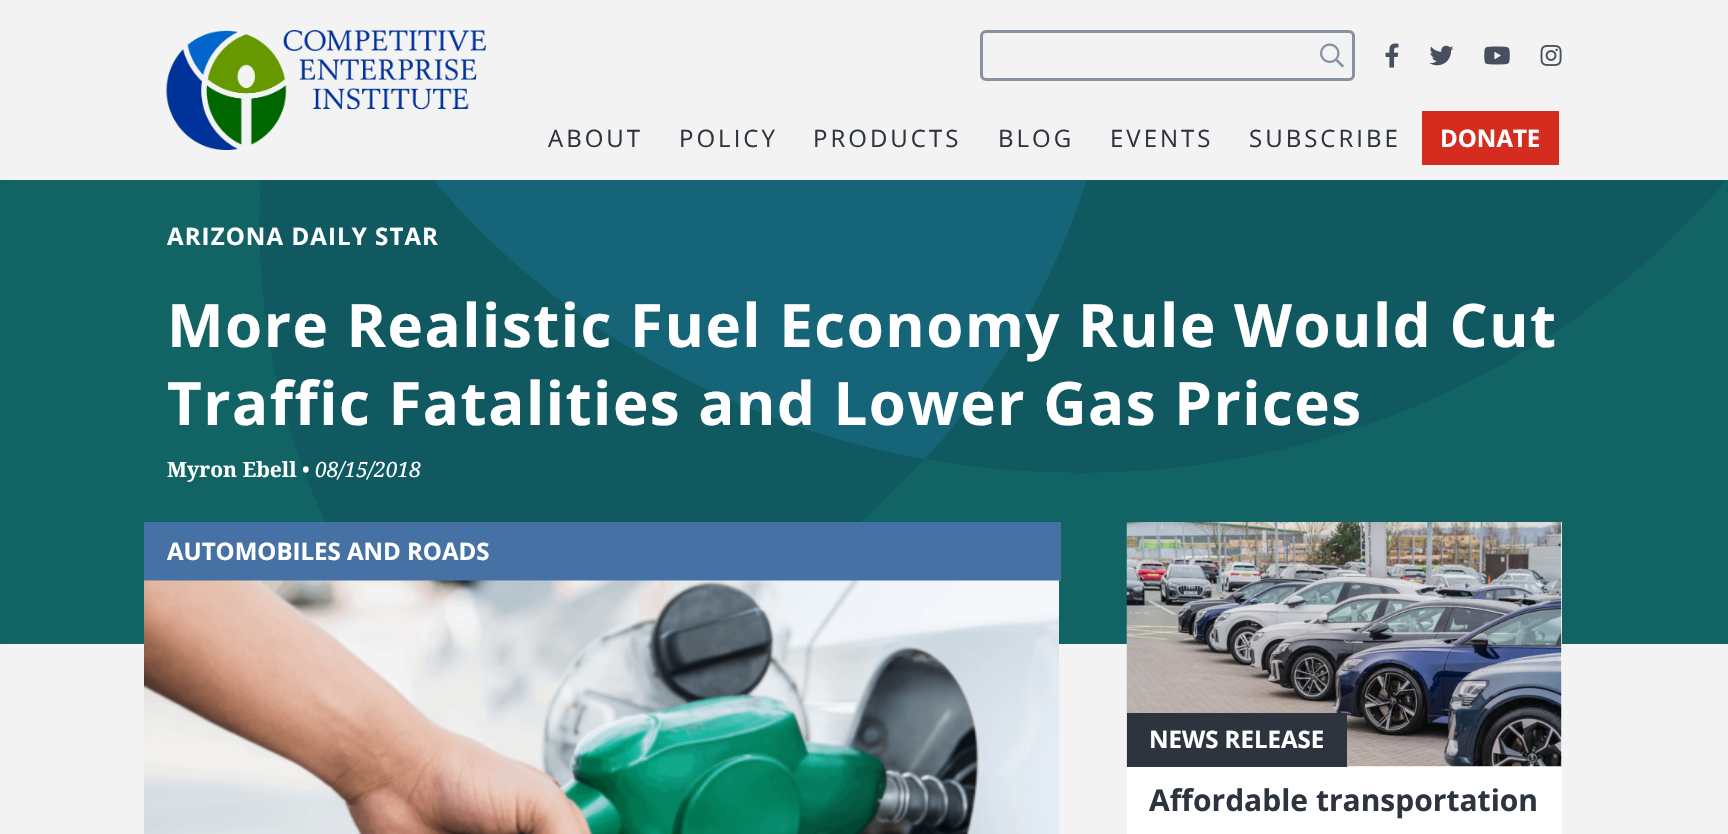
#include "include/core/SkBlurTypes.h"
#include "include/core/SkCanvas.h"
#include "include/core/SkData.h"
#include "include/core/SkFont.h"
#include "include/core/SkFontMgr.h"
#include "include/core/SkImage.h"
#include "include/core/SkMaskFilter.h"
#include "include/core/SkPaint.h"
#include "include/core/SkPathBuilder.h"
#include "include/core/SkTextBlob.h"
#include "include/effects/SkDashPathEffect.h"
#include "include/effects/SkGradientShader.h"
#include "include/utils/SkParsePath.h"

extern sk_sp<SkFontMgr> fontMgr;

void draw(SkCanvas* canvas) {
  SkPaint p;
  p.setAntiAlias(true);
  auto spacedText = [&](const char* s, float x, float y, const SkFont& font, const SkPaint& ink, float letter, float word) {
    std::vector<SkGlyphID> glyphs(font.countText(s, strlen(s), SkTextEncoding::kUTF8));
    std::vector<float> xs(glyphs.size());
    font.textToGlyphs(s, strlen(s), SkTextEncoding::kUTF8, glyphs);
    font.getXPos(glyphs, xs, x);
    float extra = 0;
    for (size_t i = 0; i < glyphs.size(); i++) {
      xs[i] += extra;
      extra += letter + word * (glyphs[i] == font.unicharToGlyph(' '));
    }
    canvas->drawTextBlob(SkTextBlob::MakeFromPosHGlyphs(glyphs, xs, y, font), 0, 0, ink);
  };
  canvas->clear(SkColorSetRGB(243, 243, 243));
  canvas->drawImageRect(SkImages::DeferredFromEncodedData(SkData::MakeFromFileName("images/1.png")), SkRect::MakeLTRB(166, 30, 486, 150), SkSamplingOptions());
  p.setStyle(SkPaint::kStroke_Style);
  p.setStrokeWidth(3);
  p.setColor(SkColorSetRGB(134, 145, 162));
  canvas->drawRoundRect(SkRect::MakeLTRB(981.5f, 31.5f, 1353.5f, 79.5f), 4.5f, 4.5f, p);
  canvas->drawImageRect(SkImages::DeferredFromEncodedData(SkData::MakeFromFileName("images/2.png")), SkRect::MakeLTRB(1320, 43, 1344, 68), SkSamplingOptions());
  canvas->drawImageRect(SkImages::DeferredFromEncodedData(SkData::MakeFromFileName("images/3.png")), SkRect::MakeLTRB(1385, 43, 1399, 68), SkSamplingOptions());
  canvas->drawImageRect(SkImages::DeferredFromEncodedData(SkData::MakeFromFileName("images/4.png")), SkRect::MakeLTRB(1429, 45, 1454, 66), SkSamplingOptions());
  canvas->drawImageRect(SkImages::DeferredFromEncodedData(SkData::MakeFromFileName("images/5.png")), SkRect::MakeLTRB(1484, 46, 1510, 65), SkSamplingOptions());
  canvas->drawImageRect(SkImages::DeferredFromEncodedData(SkData::MakeFromFileName("images/6.png")), SkRect::MakeLTRB(1540, 45, 1562, 66), SkSamplingOptions());
  p.setStyle(SkPaint::kFill_Style);
  p.setColor(SkColorSetRGB(213, 44, 32));
  canvas->drawRect(SkRect::MakeLTRB(1422, 111, 1559, 165), p);
  p.setColor(SkColorSetRGB(0, 102, 102));
  canvas->drawRect(SkRect::MakeLTRB(0, 180, 1728, 644), p);
  canvas->drawImageRect(SkImages::DeferredFromEncodedData(SkData::MakeFromFileName("images/7.png")), SkRect::MakeLTRB(1, 180, 1727, 644), SkSamplingOptions());
  p.setColor(SkColorSetRGB(70, 113, 165));
  canvas->drawRect(SkRect::MakeLTRB(144, 522, 1061, 581), p);
  canvas->drawImageRect(SkImages::DeferredFromEncodedData(SkData::MakeFromFileName("images/8.png")), SkRect::MakeLTRB(144, 580, 1059, 834), SkSamplingOptions());
  p.setColor(SK_ColorWHITE);
  canvas->drawRect(SkRect::MakeLTRB(1127, 522, 1562, 834), p);
  canvas->drawImageRect(SkImages::DeferredFromEncodedData(SkData::MakeFromFileName("images/9.png")), SkRect::MakeLTRB(1126, 522, 1562, 767), SkSamplingOptions());
  p.setColor(SkColorSetRGB(46, 52, 62));
  canvas->drawRect(SkRect::MakeLTRB(1127, 713, 1347, 767), p);
  SkFont font1(fontMgr->matchFamilyStyle("Open Sans", SkFontStyle::Normal()), 24);
  font1.setSubpixel(true);
  spacedText("ABOUT", 548, 147, font1, p, 3, 0);
  spacedText("POLICY", 679, 147, font1, p, 3, 0);
  spacedText("PRODUCTS", 813, 147, font1, p, 3, 0);
  spacedText("BLOG", 998, 147, font1, p, 3, 0);
  spacedText("EVENTS", 1110, 147, font1, p, 3, 0);
  spacedText("SUBSCRIBE", 1249, 147, font1, p, 3, 0);
  SkFont font2(fontMgr->matchFamilyStyle("Open Sans", SkFontStyle::Bold()), 24);
  font2.setSubpixel(true);
  p.setColor(SK_ColorWHITE);
  canvas->drawString("DONATE", 1440, 147, font2, p);
  spacedText("ARIZONA DAILY STAR", 167, 245, font2, p, 1.1f, 0);
  SkFont font3(fontMgr->matchFamilyStyle("Noto Serif", SkFontStyle::Bold()), 21);
  font3.setSubpixel(true);
  canvas->drawString("Myron Ebell", 167, 477, font3, p);
  SkFont font4(fontMgr->matchFamilyStyle("Noto Serif", SkFontStyle::Normal()), 21);
  font4.setSubpixel(true);
  canvas->drawString("•", 302, 477, font4, p);
  SkFont font5(fontMgr->matchFamilyStyle("Noto Serif", SkFontStyle::Italic()), 21);
  font5.setSubpixel(true);
  canvas->drawString("08/15/2018", 315, 477, font5, p);
  canvas->drawString("AUTOMOBILES AND ROADS", 167, 560, font2, p);
  SkFont font6(fontMgr->matchFamilyStyle("Open Sans", SkFontStyle::Bold()), 60);
  font6.setSubpixel(true);
  spacedText("More Realistic Fuel Economy Rule Would Cut", 167, 347, font6, p, 1.5f, 0);
  spacedText("Traffic Fatalities and Lower Gas Prices", 167, 425, font6, p, 1.5f, 0);
  canvas->drawString("NEWS RELEASE", 1149, 748, font2, p);
  SkFont font7(fontMgr->matchFamilyStyle("Open Sans", SkFontStyle::Bold()), 30);
  font7.setSubpixel(true);
  p.setColor(SkColorSetRGB(46, 52, 62));
  canvas->drawString("Affordable transportation", 1149, 811, font7, p);
}
